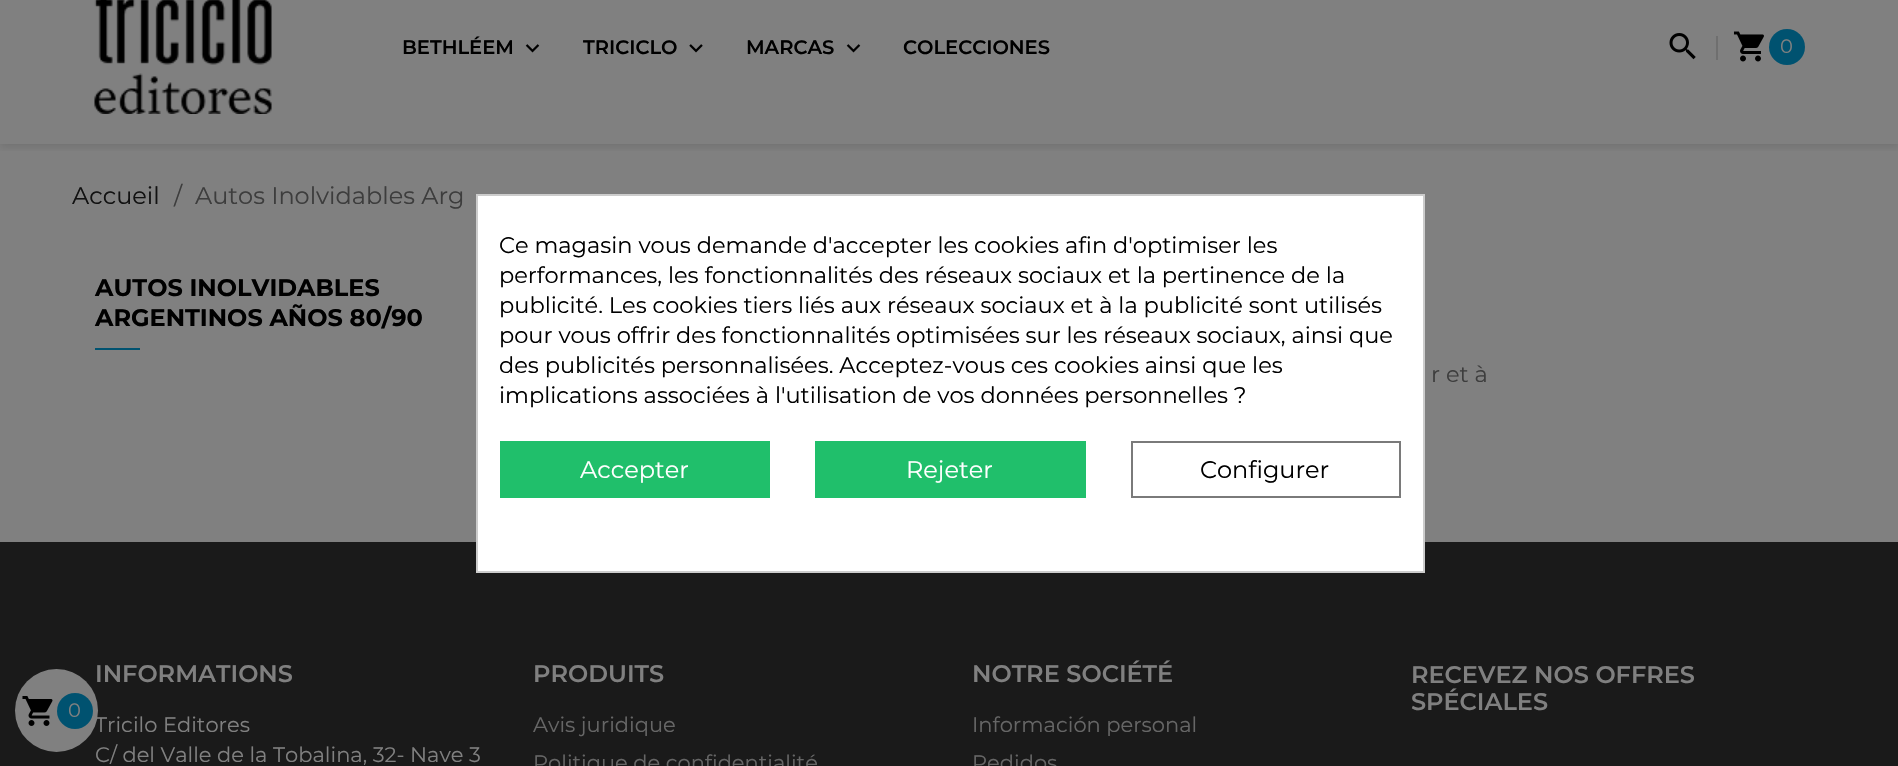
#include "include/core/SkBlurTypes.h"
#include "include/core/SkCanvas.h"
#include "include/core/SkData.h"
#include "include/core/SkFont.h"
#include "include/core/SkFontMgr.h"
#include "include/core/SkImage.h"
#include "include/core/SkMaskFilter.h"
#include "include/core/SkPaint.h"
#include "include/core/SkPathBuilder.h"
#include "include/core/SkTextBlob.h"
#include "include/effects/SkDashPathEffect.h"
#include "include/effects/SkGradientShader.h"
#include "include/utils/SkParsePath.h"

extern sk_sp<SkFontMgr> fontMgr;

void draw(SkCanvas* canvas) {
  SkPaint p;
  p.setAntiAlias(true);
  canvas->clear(SkColorSetRGB(128, 128, 128));
  canvas->save();
  canvas->clipRect(SkRect::MakeLTRB(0, 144, 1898, 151));
  p.setColor(SkColorSetARGB(28, 0, 0, 0));
  p.setMaskFilter(SkMaskFilter::MakeBlur(kNormal_SkBlurStyle, 4));
  canvas->drawRect(SkRect::MakeLTRB(0, -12, 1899, 147), p);
  p.setMaskFilter(nullptr);
  canvas->restore();
  canvas->drawImageRect(SkImages::DeferredFromEncodedData(SkData::MakeFromFileName("images/1.png")), SkRect::MakeLTRB(94, 0, 272, 114), SkSamplingOptions());
  canvas->drawImageRect(SkImages::DeferredFromEncodedData(SkData::MakeFromFileName("images/2.png")), SkRect::MakeLTRB(525, 44, 540, 53), SkSamplingOptions());
  canvas->drawImageRect(SkImages::DeferredFromEncodedData(SkData::MakeFromFileName("images/3.png")), SkRect::MakeLTRB(689, 44, 703, 53), SkSamplingOptions());
  canvas->drawImageRect(SkImages::DeferredFromEncodedData(SkData::MakeFromFileName("images/2.png")), SkRect::MakeLTRB(846, 44, 861, 53), SkSamplingOptions());
  canvas->drawImageRect(SkImages::DeferredFromEncodedData(SkData::MakeFromFileName("images/4.png")), SkRect::MakeLTRB(1669, 33, 1696, 60), SkSamplingOptions());
  p.setColor(SkColorSetRGB(111, 111, 111));
  canvas->drawRect(SkRect::MakeLTRB(1716, 36, 1718, 60), p);
  canvas->drawImageRect(SkImages::DeferredFromEncodedData(SkData::MakeFromFileName("images/5.png")), SkRect::MakeLTRB(1733, 31, 1764, 62), SkSamplingOptions());
  p.setColor(SkColorSetRGB(0, 82, 112));
  canvas->drawCircle(1787, 47, 18, p);
  canvas->drawRect(SkRect::MakeLTRB(95, 348, 140, 350), p);
  p.setColor(SkColorSetRGB(26, 26, 26));
  canvas->drawRect(SkRect::MakeLTRB(0, 542, 1898, 766), p);
  p.setColor(SkColorSetRGB(128, 128, 128));
  canvas->drawCircle(56.5f, 710.5f, 41.5f, p);
  canvas->drawImageRect(SkImages::DeferredFromEncodedData(SkData::MakeFromFileName("images/6.png")), SkRect::MakeLTRB(22, 696, 53, 726), SkSamplingOptions());
  p.setColor(SkColorSetRGB(0, 82, 112));
  canvas->drawCircle(75, 711, 18, p);
  p.setColor(SK_ColorWHITE);
  canvas->drawRect(SkRect::MakeLTRB(477, 195, 1424, 572), p);
  p.setStyle(SkPaint::kStroke_Style);
  p.setStrokeWidth(2);
  p.setColor(SkColorSetRGB(204, 204, 204));
  canvas->drawRect(SkRect::MakeLTRB(477, 195, 1424, 572), p);
  p.setStyle(SkPaint::kFill_Style);
  p.setColor(SkColorSetRGB(32, 191, 107));
  canvas->drawRect(SkRect::MakeLTRB(500, 441, 770, 498), p);
  canvas->drawRect(SkRect::MakeLTRB(815, 441, 1086, 498), p);
  p.setStyle(SkPaint::kStroke_Style);
  p.setColor(SkColorSetRGB(122, 122, 122));
  canvas->drawRect(SkRect::MakeLTRB(1132, 442, 1400, 497), p);
  SkFont font1(fontMgr->matchFamilyStyle("Montserrat", SkFontStyle(600, SkFontStyle::kNormal_Width, SkFontStyle::kUpright_Slant)), 19.5f);
  font1.setSubpixel(true);
  p.setStyle(SkPaint::kFill_Style);
  p.setColor(SK_ColorBLACK);
  canvas->drawString("BETHLÉEM", 402, 54, font1, p);
  canvas->drawString("TRICICLO", 583, 54, font1, p);
  canvas->drawString("MARCAS", 746, 54, font1, p);
  canvas->drawString("COLECCIONES", 903, 54, font1, p);
  SkFont font2(fontMgr->matchFamilyStyle("Montserrat", SkFontStyle::Normal()), 19.5f);
  font2.setSubpixel(true);
  p.setColor(SkColorSetRGB(128, 128, 128));
  canvas->drawString("0", 1780, 53, font2, p);
  SkFont font3(fontMgr->matchFamilyStyle("Montserrat", SkFontStyle::Normal()), 24);
  font3.setSubpixel(true);
  p.setColor(SkColorSetRGB(18, 18, 18));
  canvas->drawString("Accueil", 72, 204, font3, p);
  p.setColor(SkColorSetRGB(61, 61, 61));
  canvas->drawString("/", 174, 204, font3, p);
  canvas->drawString("Autos Inolvidables Arg", 195, 204, font3, p);
  SkFont font4(fontMgr->matchFamilyStyle("Montserrat", SkFontStyle::Bold()), 24);
  font4.setSubpixel(true);
  p.setColor(SK_ColorBLACK);
  canvas->drawString("AUTOS INOLVIDABLES", 95, 296, font4, p);
  canvas->drawString("ARGENTINOS AÑOS 80/90", 95, 326, font4, p);
  SkFont font5(fontMgr->matchFamilyStyle("Montserrat", SkFontStyle::Normal()), 22.5f);
  font5.setSubpixel(true);
  p.setColor(SkColorSetRGB(61, 61, 61));
  canvas->drawString("r et à", 1431, 382, font5, p);
  p.setColor(SkColorSetRGB(128, 128, 128));
  canvas->drawString("0", 68, 717, font2, p);
  SkFont font6(fontMgr->matchFamilyStyle("Montserrat", SkFontStyle(600, SkFontStyle::kNormal_Width, SkFontStyle::kUpright_Slant)), 24);
  font6.setSubpixel(true);
  canvas->drawString("INFORMATIONS", 95, 682, font6, p);
  SkFont font7(fontMgr->matchFamilyStyle("Montserrat", SkFontStyle::Normal()), 21);
  font7.setSubpixel(true);
  canvas->drawString("Tricilo Editores", 95, 732, font7, p);
  canvas->drawString("C/ del Valle de la Tobalina, 32- Nave 3", 95, 762, font7, p);
  canvas->drawString("PRODUITS", 533, 682, font6, p);
  p.setColor(SkColorSetRGB(102, 102, 102));
  canvas->drawString("Avis juridique", 533, 732, font7, p);
  canvas->drawString("Politique de confidentialité", 533, 770, font7, p);
  p.setColor(SkColorSetRGB(128, 128, 128));
  canvas->drawString("NOTRE SOCIÉTÉ", 972, 682, font6, p);
  p.setColor(SkColorSetRGB(102, 102, 102));
  canvas->drawString("Información personal", 972, 732, font7, p);
  canvas->drawString("Pedidos", 972, 770, font7, p);
  p.setColor(SkColorSetRGB(128, 128, 128));
  canvas->drawString("RECEVEZ NOS OFFRES", 1411, 683, font6, p);
  canvas->drawString("SPÉCIALES", 1411, 710, font6, p);
  p.setColor(SK_ColorBLACK);
  canvas->drawString("Ce magasin vous demande d'accepter les cookies afin d'optimiser les", 499, 253, font5, p);
  canvas->drawString("performances, les fonctionnalités des réseaux sociaux et la pertinence de la", 499, 283, font5, p);
  canvas->drawString("publicité. Les cookies tiers liés aux réseaux sociaux et à la publicité sont utilisés", 499, 313, font5, p);
  canvas->drawString("pour vous offrir des fonctionnalités optimisées sur les réseaux sociaux, ainsi que", 499, 343, font5, p);
  canvas->drawString("des publicités personnalisées. Acceptez-vous ces cookies ainsi que les", 499, 373, font5, p);
  canvas->drawString("implications associées à l'utilisation de vos données personnelles ?", 499, 403, font5, p);
  p.setColor(SK_ColorWHITE);
  canvas->drawString("Accepter", 580, 478, font3, p);
  canvas->drawString("Rejeter", 906, 478, font3, p);
  p.setColor(SK_ColorBLACK);
  canvas->drawString("Configurer", 1200, 478, font3, p);
}
